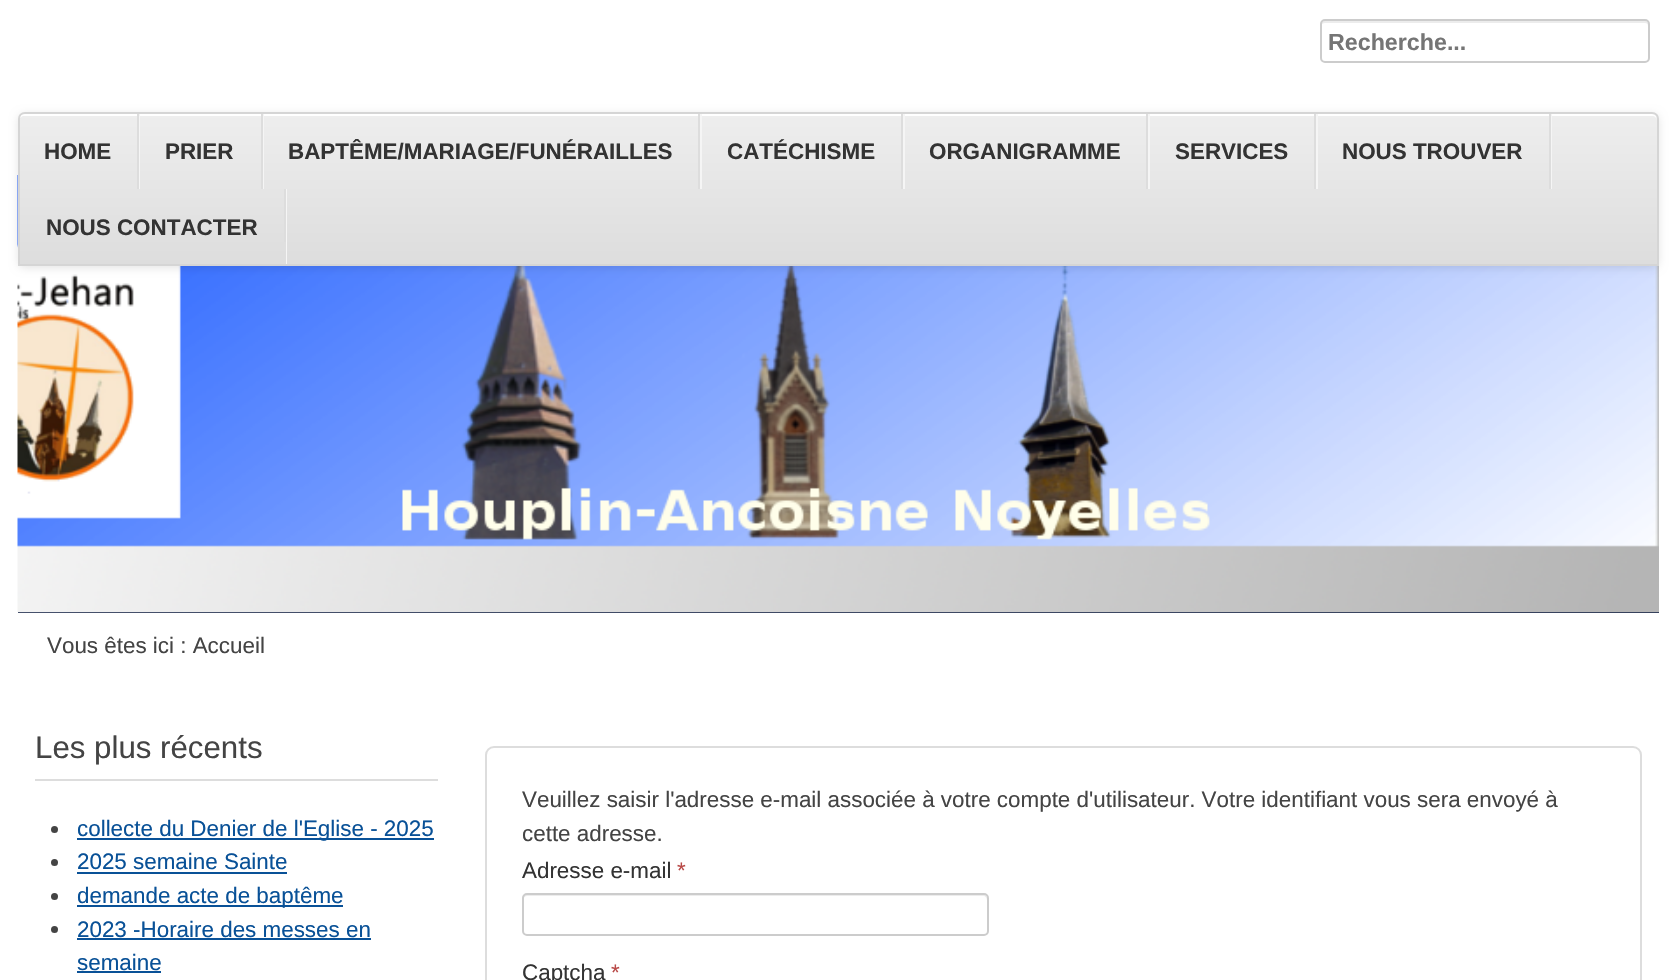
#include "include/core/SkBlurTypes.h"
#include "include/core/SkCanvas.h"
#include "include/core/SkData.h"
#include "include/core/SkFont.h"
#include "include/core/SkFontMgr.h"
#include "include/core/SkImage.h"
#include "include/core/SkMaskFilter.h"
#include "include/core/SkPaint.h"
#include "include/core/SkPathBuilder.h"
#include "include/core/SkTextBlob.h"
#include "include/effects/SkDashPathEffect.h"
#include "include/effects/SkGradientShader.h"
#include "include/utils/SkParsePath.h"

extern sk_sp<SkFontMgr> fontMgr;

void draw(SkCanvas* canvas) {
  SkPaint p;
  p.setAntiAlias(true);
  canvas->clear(SK_ColorWHITE);
  p.setColor(SkColorSetRGB(236, 236, 236));
  canvas->drawPath(SkPathBuilder().moveTo(1325, 23).lineTo(1645, 23).cubicTo(1647, 23, 1648, 24, 1648, 26).lineTo(1648, 60).cubicTo(1649, 59, 1649, 58, 1649, 57).lineTo(1649, 25).cubicTo(1649, 23, 1647, 21, 1645, 21).lineTo(1325, 21).cubicTo(1323, 21, 1321, 23, 1321, 25).lineTo(1321, 26).cubicTo(1321, 24, 1323, 23, 1325, 23).close().detach(), p);
  p.setStyle(SkPaint::kStroke_Style);
  p.setStrokeWidth(2);
  p.setColor(SkColorSetRGB(204, 204, 204));
  canvas->drawRoundRect(SkRect::MakeLTRB(1321, 20, 1649, 62), 4, 4, p);
  p.setStyle(SkPaint::kFill_Style);
  p.setColor(SkColorSetRGB(12, 26, 62));
  canvas->drawRect(SkRect::MakeLTRB(18, 612, 1659, 613), p);
  canvas->drawImageRect(SkImages::DeferredFromEncodedData(SkData::MakeFromFileName("images/1.png")), SkRect::MakeLTRB(17, 175, 1659, 613), SkSamplingOptions());
  p.setColor(SkColorSetARGB(26, 0, 0, 0));
  p.setMaskFilter(SkMaskFilter::MakeBlur(kNormal_SkBlurStyle, 4.5f));
  canvas->drawRoundRect(SkRect::MakeLTRB(18, 114, 1659, 268), 7, 7, p);
  p.setMaskFilter(nullptr);
  canvas->save();
  canvas->clipPath(SkPathBuilder().moveTo(25, 112).lineTo(1652, 112).cubicTo(1656, 112, 1659, 115, 1659, 119).lineTo(1659, 266).lineTo(18, 266).lineTo(18, 119).cubicTo(18, 115, 21, 112, 25, 112).close().detach(), true);
  {
    const SkColor colors[] = {SkColorSetRGB(238, 238, 238), SkColorSetRGB(221, 221, 221)};
    const float stops[] = {0, 1};
    const SkPoint ends[] = {{838, 114}, {838, 264}};
    p.setShader(SkGradientShader::MakeLinear(ends, colors, stops, 2, SkTileMode::kClamp));
    p.setAlpha(255);
  }
  canvas->drawRect(SkRect::MakeLTRB(18, 114, 1659, 264), p);
  canvas->restore();
  p.setShader(nullptr);
  p.setColor(SK_ColorWHITE);
  canvas->drawPath(SkPathBuilder().moveTo(24, 116).lineTo(1652, 116).cubicTo(1655, 116, 1657, 118, 1657, 121).cubicTo(1657, 118, 1656, 114, 1652, 114).lineTo(24, 114).cubicTo(20, 114, 19, 118, 19, 121).cubicTo(19, 118, 22, 116, 24, 116).close().detach(), p);
  p.setStyle(SkPaint::kStroke_Style);
  p.setColor(SkColorSetRGB(213, 213, 213));
  canvas->drawPath(SkPathBuilder().moveTo(25, 113).lineTo(1652, 113).cubicTo(1655.5f, 113, 1658, 115.5f, 1658, 119).lineTo(1658, 265).lineTo(19, 265).lineTo(19, 119).cubicTo(19, 115.5f, 21.5f, 113, 25, 113).close().detach(), p);
  p.setStyle(SkPaint::kFill_Style);
  p.setColor(SkColorSetRGB(245, 245, 245));
  canvas->drawRect(SkRect::MakeLTRB(139, 114, 140, 189), p);
  p.setColor(SkColorSetRGB(221, 221, 221));
  canvas->drawRect(SkRect::MakeLTRB(137, 114, 139, 189), p);
  p.setColor(SkColorSetRGB(245, 245, 245));
  canvas->drawRect(SkRect::MakeLTRB(263, 114, 264, 189), p);
  p.setColor(SkColorSetRGB(221, 221, 221));
  canvas->drawRect(SkRect::MakeLTRB(261, 114, 263, 189), p);
  p.setColor(SkColorSetRGB(245, 245, 245));
  canvas->drawRect(SkRect::MakeLTRB(700, 114, 702, 189), p);
  p.setColor(SkColorSetRGB(221, 221, 221));
  canvas->drawRect(SkRect::MakeLTRB(698, 114, 700, 189), p);
  p.setColor(SkColorSetRGB(245, 245, 245));
  canvas->drawRect(SkRect::MakeLTRB(903, 114, 905, 189), p);
  p.setColor(SkColorSetRGB(221, 221, 221));
  canvas->drawRect(SkRect::MakeLTRB(901, 114, 903, 189), p);
  p.setColor(SkColorSetRGB(245, 245, 245));
  canvas->drawRect(SkRect::MakeLTRB(1148, 114, 1150, 189), p);
  p.setColor(SkColorSetRGB(221, 221, 221));
  canvas->drawRect(SkRect::MakeLTRB(1146, 114, 1148, 189), p);
  p.setColor(SkColorSetRGB(245, 245, 245));
  canvas->drawRect(SkRect::MakeLTRB(1316, 114, 1318, 189), p);
  p.setColor(SkColorSetRGB(221, 221, 221));
  canvas->drawRect(SkRect::MakeLTRB(1314, 114, 1316, 189), p);
  p.setColor(SkColorSetRGB(245, 245, 245));
  canvas->drawRect(SkRect::MakeLTRB(1551, 114, 1552, 189), p);
  p.setColor(SkColorSetRGB(221, 221, 221));
  canvas->drawRect(SkRect::MakeLTRB(1549, 114, 1551, 189), p);
  p.setColor(SkColorSetRGB(245, 245, 245));
  canvas->drawRect(SkRect::MakeLTRB(286, 189, 287, 264), p);
  p.setColor(SkColorSetRGB(221, 221, 221));
  canvas->drawRect(SkRect::MakeLTRB(284, 189, 286, 242), p);
  canvas->drawRect(SkRect::MakeLTRB(35, 779, 438, 781), p);
  p.setColor(SkColorSetRGB(68, 68, 68));
  canvas->drawCircle(54.5f, 829.5f, 3.5f, p);
  p.setColor(SkColorSetRGB(9, 81, 151));
  canvas->drawRect(SkRect::MakeLTRB(77, 838, 434, 840), p);
  p.setColor(SkColorSetRGB(68, 68, 68));
  canvas->drawCircle(54.5f, 862.5f, 3.5f, p);
  p.setColor(SkColorSetRGB(9, 81, 151));
  canvas->drawRect(SkRect::MakeLTRB(77, 872, 287, 874), p);
  p.setColor(SkColorSetRGB(68, 68, 68));
  canvas->drawCircle(54.5f, 896.5f, 3.5f, p);
  p.setColor(SkColorSetRGB(9, 81, 151));
  canvas->drawRect(SkRect::MakeLTRB(77, 905, 343, 907), p);
  p.setColor(SkColorSetRGB(68, 68, 68));
  canvas->drawCircle(54.5f, 929.5f, 3.5f, p);
  p.setColor(SkColorSetRGB(9, 81, 151));
  canvas->drawRect(SkRect::MakeLTRB(77, 938, 371, 940), p);
  canvas->drawRect(SkRect::MakeLTRB(77, 971, 161, 973), p);
  p.setStyle(SkPaint::kStroke_Style);
  p.setColor(SkColorSetRGB(221, 221, 221));
  canvas->drawRoundRect(SkRect::MakeLTRB(486, 747, 1641, 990), 8, 8, p);
  p.setStyle(SkPaint::kFill_Style);
  p.setColor(SkColorSetRGB(236, 236, 236));
  canvas->drawPath(SkPathBuilder().moveTo(527, 896).lineTo(984, 896).cubicTo(985, 896, 987, 898, 987, 900).lineTo(987, 898).cubicTo(987, 896, 985, 894, 983, 894).lineTo(527, 894).cubicTo(525, 894, 523, 896, 523, 898).lineTo(523, 900).cubicTo(523, 898, 525, 896, 527, 896).close().detach(), p);
  p.setStyle(SkPaint::kStroke_Style);
  p.setColor(SkColorSetRGB(204, 204, 204));
  canvas->drawRoundRect(SkRect::MakeLTRB(523, 894, 988, 935), 4, 4, p);
  SkFont font1(fontMgr->matchFamilyStyle("Liberation Sans", SkFontStyle::Bold()), 23.25f);
  font1.setSubpixel(true);
  p.setStyle(SkPaint::kFill_Style);
  p.setColor(SkColorSetRGB(117, 117, 117));
  canvas->drawString("Recherche...", 1328, 50, font1, p);
  SkFont font2(fontMgr->matchFamilyStyle("Liberation Sans", SkFontStyle::Bold()), 22.4f);
  font2.setSubpixel(true);
  p.setColor(SkColorSetRGB(51, 51, 51));
  canvas->drawString("HOME", 44, 159, font2, p);
  canvas->drawString("PRIER", 165, 159, font2, p);
  canvas->drawString("BAPTÊME/MARIAGE/FUNÉRAILLES", 288, 159, font2, p);
  canvas->drawString("CATÉCHISME", 727, 159, font2, p);
  canvas->drawString("ORGANIGRAMME", 929, 159, font2, p);
  canvas->drawString("SERVICES", 1175, 159, font2, p);
  canvas->drawString("NOUS TROUVER", 1342, 159, font2, p);
  canvas->drawString("NOUS CONTACTER", 46, 235, font2, p);
  SkFont font3(fontMgr->matchFamilyStyle("Liberation Sans", SkFontStyle::Normal()), 22.4f);
  font3.setSubpixel(true);
  p.setColor(SkColorSetRGB(68, 68, 68));
  canvas->drawString("Vous êtes ici : Accueil", 47, 653, font3, p);
  SkFont font4(fontMgr->matchFamilyStyle("Liberation Sans", SkFontStyle::Normal()), 31.25f);
  font4.setSubpixel(true);
  canvas->drawString("Les plus récents", 35, 758, font4, p);
  p.setColor(SkColorSetRGB(9, 81, 151));
  canvas->drawString("collecte du Denier de l'Eglise - 2025", 77, 836, font3, p);
  canvas->drawString("2025 semaine Sainte", 77, 869, font3, p);
  canvas->drawString("demande acte de baptême", 77, 903, font3, p);
  canvas->drawString("2023 -Horaire des messes en", 77, 937, font3, p);
  canvas->drawString("semaine", 77, 970, font3, p);
  p.setColor(SkColorSetRGB(68, 68, 68));
  canvas->drawString("Veuillez saisir l'adresse e-mail associée à votre compte d'utilisateur. Votre identifiant vous sera envoyé à", 522, 807, font3, p);
  canvas->drawString("cette adresse.", 522, 841, font3, p);
  p.setColor(SkColorSetRGB(51, 51, 51));
  canvas->drawString("Adresse e-mail", 522, 878, font3, p);
  p.setColor(SkColorSetRGB(185, 74, 72));
  canvas->drawString("*", 677, 878, font3, p);
  p.setColor(SkColorSetRGB(51, 51, 51));
  canvas->drawString("Captcha", 522, 980, font3, p);
  p.setColor(SkColorSetRGB(185, 74, 72));
  canvas->drawString("*", 611, 980, font3, p);
}
